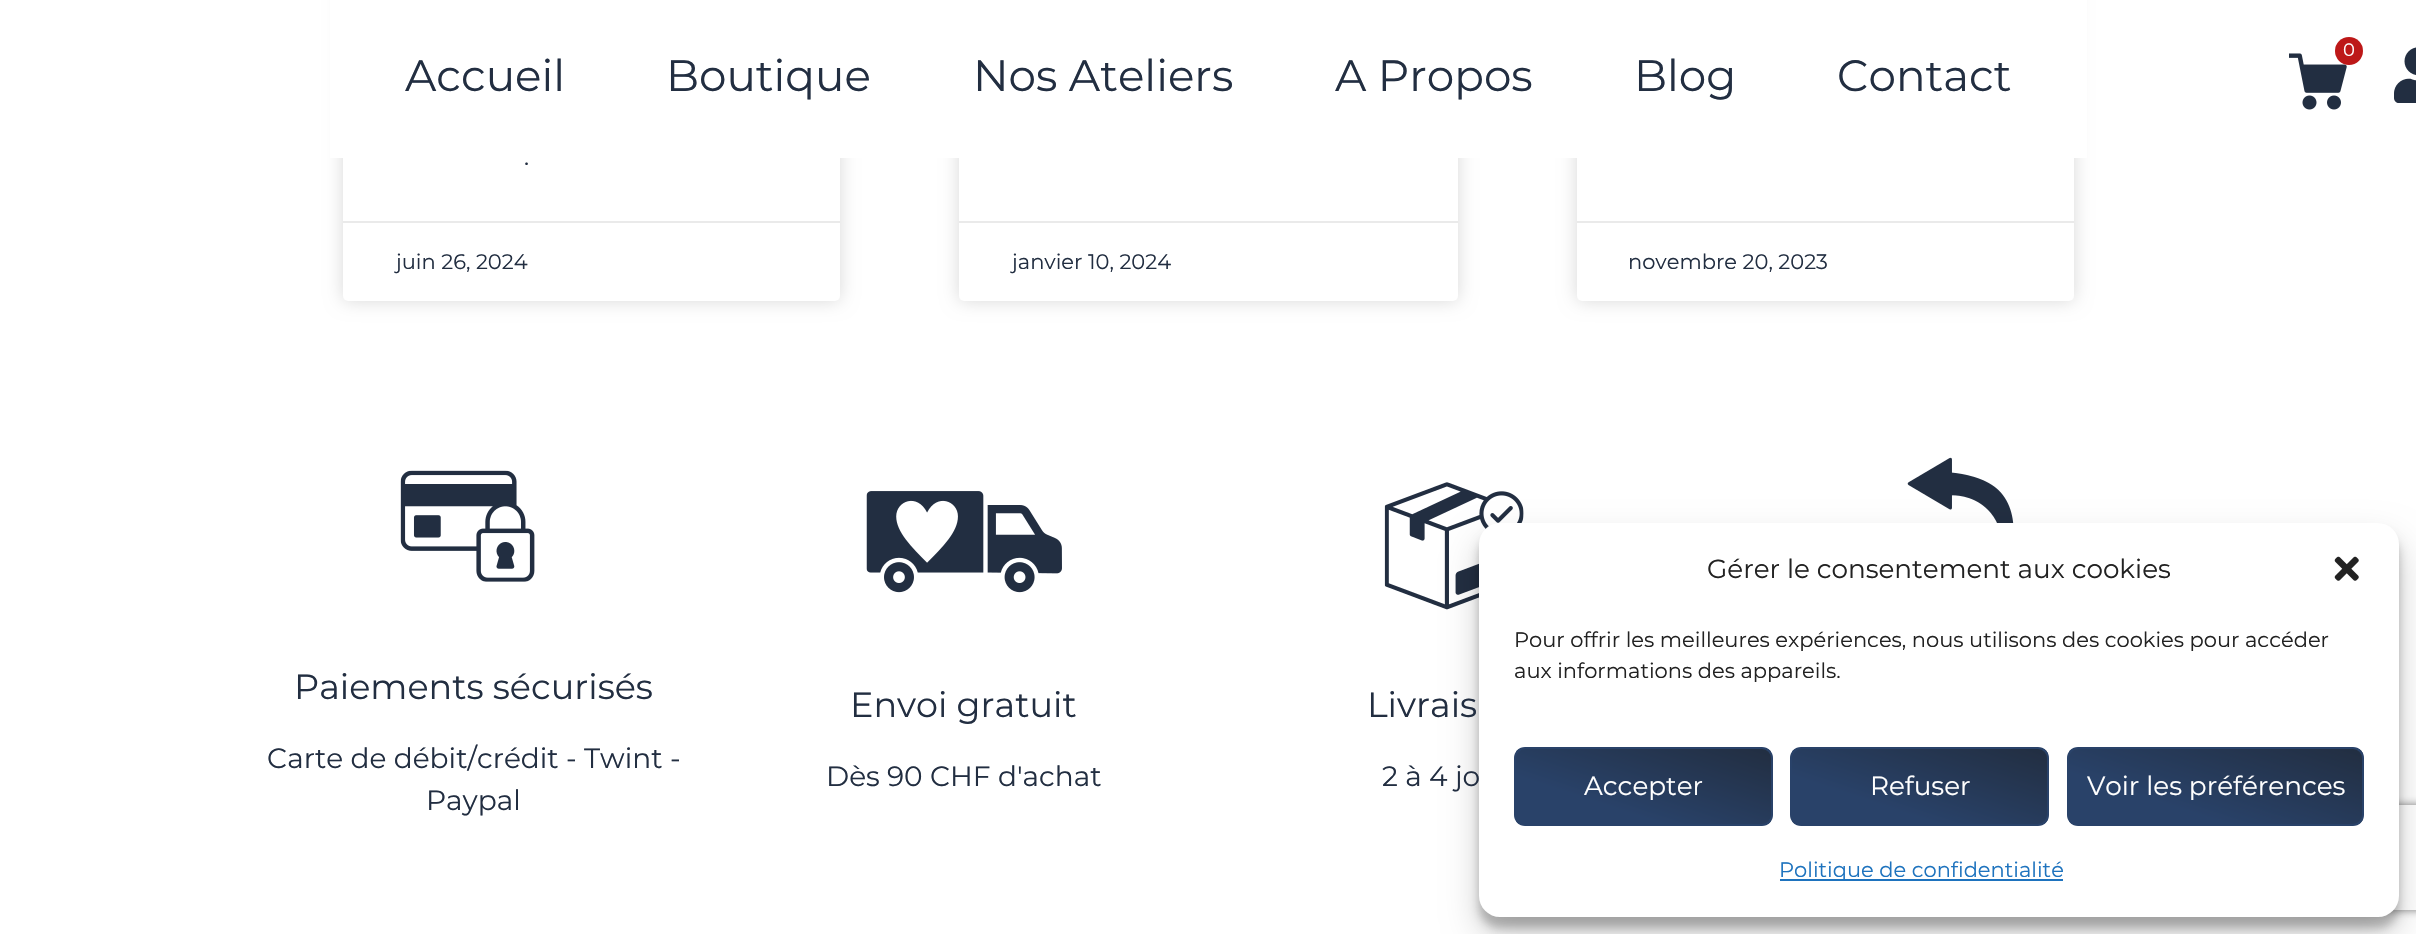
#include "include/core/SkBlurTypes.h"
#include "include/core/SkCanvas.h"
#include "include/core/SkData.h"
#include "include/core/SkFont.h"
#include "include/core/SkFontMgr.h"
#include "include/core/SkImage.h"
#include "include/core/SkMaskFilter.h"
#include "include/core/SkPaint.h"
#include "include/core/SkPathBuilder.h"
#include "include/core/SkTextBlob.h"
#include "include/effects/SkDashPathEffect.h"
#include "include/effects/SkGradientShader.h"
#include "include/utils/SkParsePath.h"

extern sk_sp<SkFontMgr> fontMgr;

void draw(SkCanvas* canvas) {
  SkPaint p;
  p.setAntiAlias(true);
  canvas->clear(SK_ColorWHITE);
  p.setColor(SkColorSetARGB(38, 0, 0, 0));
  p.setMaskFilter(SkMaskFilter::MakeBlur(kNormal_SkBlurStyle, 9));
  canvas->drawRoundRect(SkRect::MakeLTRB(343, -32, 840, 301), 5, 5, p);
  p.setMaskFilter(nullptr);
  p.setColor(SK_ColorWHITE);
  canvas->drawRoundRect(SkRect::MakeLTRB(343, -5, 840, 301), 5, 5, p);
  p.setColor(SkColorSetARGB(38, 0, 0, 0));
  p.setMaskFilter(SkMaskFilter::MakeBlur(kNormal_SkBlurStyle, 9));
  canvas->drawRoundRect(SkRect::MakeLTRB(959, -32, 1458, 301), 5, 5, p);
  p.setMaskFilter(nullptr);
  p.setColor(SK_ColorWHITE);
  canvas->drawRoundRect(SkRect::MakeLTRB(959, -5, 1458, 301), 5, 5, p);
  p.setColor(SkColorSetARGB(38, 0, 0, 0));
  p.setMaskFilter(SkMaskFilter::MakeBlur(kNormal_SkBlurStyle, 9));
  canvas->drawRoundRect(SkRect::MakeLTRB(1577, -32, 2074, 301), 5, 5, p);
  p.setMaskFilter(nullptr);
  p.setColor(SK_ColorWHITE);
  canvas->drawRoundRect(SkRect::MakeLTRB(1577, -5, 2074, 301), 5, 5, p);
  canvas->drawRect(SkRect::MakeLTRB(330, 0, 2087, 158), p);
  canvas->drawImageRect(SkImages::DeferredFromEncodedData(SkData::MakeFromFileName("images/1.png")), SkRect::MakeLTRB(2289, 53, 2347, 110), SkSamplingOptions());
  p.setColor(SkColorSetRGB(189, 24, 24));
  canvas->drawCircle(2349, 51, 14, p);
  canvas->drawImageRect(SkImages::DeferredFromEncodedData(SkData::MakeFromFileName("images/2.png")), SkRect::MakeLTRB(2394, 47, 2416, 103), SkSamplingOptions());
  p.setColor(SkColorSetRGB(234, 234, 234));
  canvas->drawRect(SkRect::MakeLTRB(343, 221, 840, 223), p);
  canvas->drawRect(SkRect::MakeLTRB(959, 221, 1458, 223), p);
  canvas->drawRect(SkRect::MakeLTRB(1577, 221, 2074, 223), p);
  canvas->drawImageRect(SkImages::DeferredFromEncodedData(SkData::MakeFromFileName("images/3.png")), SkRect::MakeLTRB(1907, 457, 2014, 523), SkSamplingOptions());
  canvas->drawImageRect(SkImages::DeferredFromEncodedData(SkData::MakeFromFileName("images/4.png")), SkRect::MakeLTRB(400, 470, 535, 582), SkSamplingOptions());
  canvas->drawImageRect(SkImages::DeferredFromEncodedData(SkData::MakeFromFileName("images/5.png")), SkRect::MakeLTRB(866, 491, 1062, 593), SkSamplingOptions());
  canvas->drawImageRect(SkImages::DeferredFromEncodedData(SkData::MakeFromFileName("images/6.png")), SkRect::MakeLTRB(1384, 482, 1524, 610), SkSamplingOptions());
  canvas->save();
  canvas->clipPath(SkPathBuilder(SkPathFillType::kEvenOdd).moveTo(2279, 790).lineTo(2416, 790).lineTo(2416, 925).lineTo(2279, 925).close().moveTo(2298, 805).lineTo(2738, 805).cubicTo(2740, 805, 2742, 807, 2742, 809).lineTo(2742, 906).cubicTo(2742, 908, 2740, 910, 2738, 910).lineTo(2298, 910).cubicTo(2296, 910, 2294, 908, 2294, 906).lineTo(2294, 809).cubicTo(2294, 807, 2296, 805, 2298, 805).close().detach(), true);
  p.setColor(SkColorSetRGB(128, 128, 128));
  p.setMaskFilter(SkMaskFilter::MakeBlur(kNormal_SkBlurStyle, 4.5f));
  canvas->drawRoundRect(SkRect::MakeLTRB(2294, 805, 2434, 910), 4, 4, p);
  p.setMaskFilter(nullptr);
  canvas->restore();
  p.setColor(SkColorSetARGB(59, 0, 0, 0));
  p.setMaskFilter(SkMaskFilter::MakeBlur(kNormal_SkBlurStyle, 5));
  canvas->drawRoundRect(SkRect::MakeLTRB(1479, 534, 2399, 928), 21, 21, p);
  p.setMaskFilter(nullptr);
  p.setColor(SkColorSetARGB(48, 0, 0, 0));
  p.setMaskFilter(SkMaskFilter::MakeBlur(kNormal_SkBlurStyle, 17.5f));
  canvas->drawRoundRect(SkRect::MakeLTRB(1479, 541, 2399, 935), 21, 21, p);
  p.setMaskFilter(nullptr);
  SkFont font1(fontMgr->matchFamilyStyle("Montserrat", SkFontStyle::Normal()), 43.75f);
  font1.setSubpixel(true);
  p.setColor(SkColorSetRGB(34, 46, 65));
  canvas->drawString("Accueil", 405, 91, font1, p);
  canvas->drawString("Boutique", 666, 91, font1, p);
  canvas->drawString("Nos Ateliers", 973, 91, font1, p);
  canvas->drawString("A Propos", 1335, 91, font1, p);
  canvas->drawString("Blog", 1634, 91, font1, p);
  canvas->drawString("Contact", 1837, 91, font1, p);
  SkFont font2(fontMgr->matchFamilyStyle("Montserrat", SkFontStyle::Normal()), 18);
  font2.setSubpixel(true);
  p.setColor(SK_ColorWHITE);
  canvas->drawString("0", 2343, 56, font2, p);
  SkFont font3(fontMgr->matchFamilyStyle("Montserrat", SkFontStyle::Normal()), 24);
  font3.setSubpixel(true);
  p.setColor(SkColorSetRGB(34, 46, 65));
  canvas->drawString(".", 524, 165, font3, p);
  SkFont font4(fontMgr->matchFamilyStyle("Montserrat", SkFontStyle::Normal()), 21);
  font4.setSubpixel(true);
  canvas->drawString("juin 26, 2024", 396, 269, font4, p);
  canvas->drawString("janvier 10, 2024", 1012, 269, font4, p);
  canvas->drawString("novembre 20, 2023", 1628, 269, font4, p);
  SkFont font5(fontMgr->matchFamilyStyle("Montserrat", SkFontStyle::Normal()), 35);
  font5.setSubpixel(true);
  canvas->drawString("Paiements sécurisés", 294, 699, font5, p);
  SkFont font6(fontMgr->matchFamilyStyle("Montserrat", SkFontStyle::Normal()), 28);
  font6.setSubpixel(true);
  canvas->drawString("Carte de débit/crédit - Twint -", 267, 768, font6, p);
  canvas->drawString("Paypal", 426, 810, font6, p);
  canvas->drawString("Envoi gratuit", 850, 717, font5, p);
  canvas->drawString("Dès 90 CHF d'achat", 826, 786, font6, p);
  canvas->drawString("Livrais", 1367, 717, font5, p);
  canvas->drawString("2 à 4 jo", 1382, 786, font6, p);
  p.setColor(SK_ColorWHITE);
  canvas->drawRoundRect(SkRect::MakeLTRB(1479, 523, 2399, 917), 21, 21, p);
  SkFont font7(fontMgr->matchFamilyStyle("Montserrat", SkFontStyle::Normal()), 26.25f);
  font7.setSubpixel(true);
  p.setColor(SkColorSetRGB(34, 34, 34));
  canvas->drawString("Gérer le consentement aux cookies", 1707, 578, font7, p);
  canvas->drawImageRect(SkImages::DeferredFromEncodedData(SkData::MakeFromFileName("images/7.png")), SkRect::MakeLTRB(2334, 556, 2359, 581), SkSamplingOptions());
  canvas->drawString("Pour offrir les meilleures expériences, nous utilisons des cookies pour accéder", 1514, 647, font4, p);
  canvas->drawString("aux informations des appareils.", 1514, 678, font4, p);
  canvas->save();
  canvas->clipPath(SkPathBuilder().moveTo(1525, 747).lineTo(1762, 747).cubicTo(1768, 747, 1773, 752, 1773, 758).lineTo(1773, 815).cubicTo(1773, 821, 1768, 826, 1762, 826).lineTo(1525, 826).cubicTo(1519, 826, 1514, 821, 1514, 815).lineTo(1514, 758).cubicTo(1514, 752, 1519, 747, 1525, 747).close().detach(), true);
  {
    const SkColor colors[] = {SkColorSetRGB(34, 46, 65), SkColorSetRGB(41, 66, 105)};
    const float stops[] = {0, 0.7f};
    const SkPoint ends[] = {{1667, 715}, {1620, 858}};
    p.setShader(SkGradientShader::MakeLinear(ends, colors, stops, 2, SkTileMode::kClamp));
    p.setAlpha(255);
  }
  canvas->drawRect(SkRect::MakeLTRB(1516, 749, 1771, 824), p);
  canvas->restore();
  p.setStyle(SkPaint::kStroke_Style);
  p.setStrokeWidth(2);
  p.setShader(nullptr);
  p.setColor(SkColorSetRGB(41, 66, 105));
  canvas->drawRoundRect(SkRect::MakeLTRB(1515, 748, 1772, 825), 10, 10, p);
  p.setStyle(SkPaint::kFill_Style);
  p.setColor(SK_ColorWHITE);
  canvas->drawString("Accepter", 1584, 795, font7, p);
  canvas->save();
  canvas->clipPath(SkPathBuilder().moveTo(1801, 747).lineTo(2038, 747).cubicTo(2044, 747, 2049, 752, 2049, 758).lineTo(2049, 815).cubicTo(2049, 821, 2044, 826, 2038, 826).lineTo(1801, 826).cubicTo(1795, 826, 1790, 821, 1790, 815).lineTo(1790, 758).cubicTo(1790, 752, 1795, 747, 1801, 747).close().detach(), true);
  {
    const SkColor colors[] = {SkColorSetRGB(34, 46, 65), SkColorSetRGB(41, 66, 105)};
    const float stops[] = {0, 0.7f};
    const SkPoint ends[] = {{1943, 715}, {1896, 858}};
    p.setShader(SkGradientShader::MakeLinear(ends, colors, stops, 2, SkTileMode::kClamp));
    p.setAlpha(255);
  }
  canvas->drawRect(SkRect::MakeLTRB(1792, 749, 2048, 824), p);
  canvas->restore();
  p.setStyle(SkPaint::kStroke_Style);
  p.setShader(nullptr);
  p.setColor(SkColorSetRGB(41, 66, 105));
  canvas->drawRoundRect(SkRect::MakeLTRB(1791, 748, 2048, 825), 10, 10, p);
  p.setStyle(SkPaint::kFill_Style);
  p.setColor(SK_ColorWHITE);
  canvas->drawString("Refuser", 1870, 795, font7, p);
  canvas->save();
  canvas->clipPath(SkPathBuilder().moveTo(2078, 747).lineTo(2353, 747).cubicTo(2359, 747, 2364, 752, 2364, 758).lineTo(2364, 815).cubicTo(2364, 821, 2359, 826, 2353, 826).lineTo(2078, 826).cubicTo(2072, 826, 2067, 821, 2067, 815).lineTo(2067, 758).cubicTo(2067, 752, 2072, 747, 2078, 747).close().detach(), true);
  {
    const SkColor colors[] = {SkColorSetRGB(34, 46, 65), SkColorSetRGB(41, 66, 105)};
    const float stops[] = {0, 0.7f};
    const SkPoint ends[] = {{2241, 709}, {2190, 864}};
    p.setShader(SkGradientShader::MakeLinear(ends, colors, stops, 2, SkTileMode::kClamp));
    p.setAlpha(255);
  }
  canvas->drawRect(SkRect::MakeLTRB(2069, 749, 2363, 824), p);
  canvas->restore();
  p.setStyle(SkPaint::kStroke_Style);
  p.setShader(nullptr);
  p.setColor(SkColorSetRGB(41, 66, 105));
  canvas->drawRoundRect(SkRect::MakeLTRB(2068, 748, 2363, 825), 10, 10, p);
  p.setStyle(SkPaint::kFill_Style);
  p.setColor(SK_ColorWHITE);
  canvas->drawString("Voir les préférences", 2087, 795, font7, p);
  p.setColor(SkColorSetRGB(30, 115, 190));
  canvas->drawRect(SkRect::MakeLTRB(1780, 879, 2063, 881), p);
  canvas->drawString("Politique de confidentialité", 1779, 877, font4, p);
}
